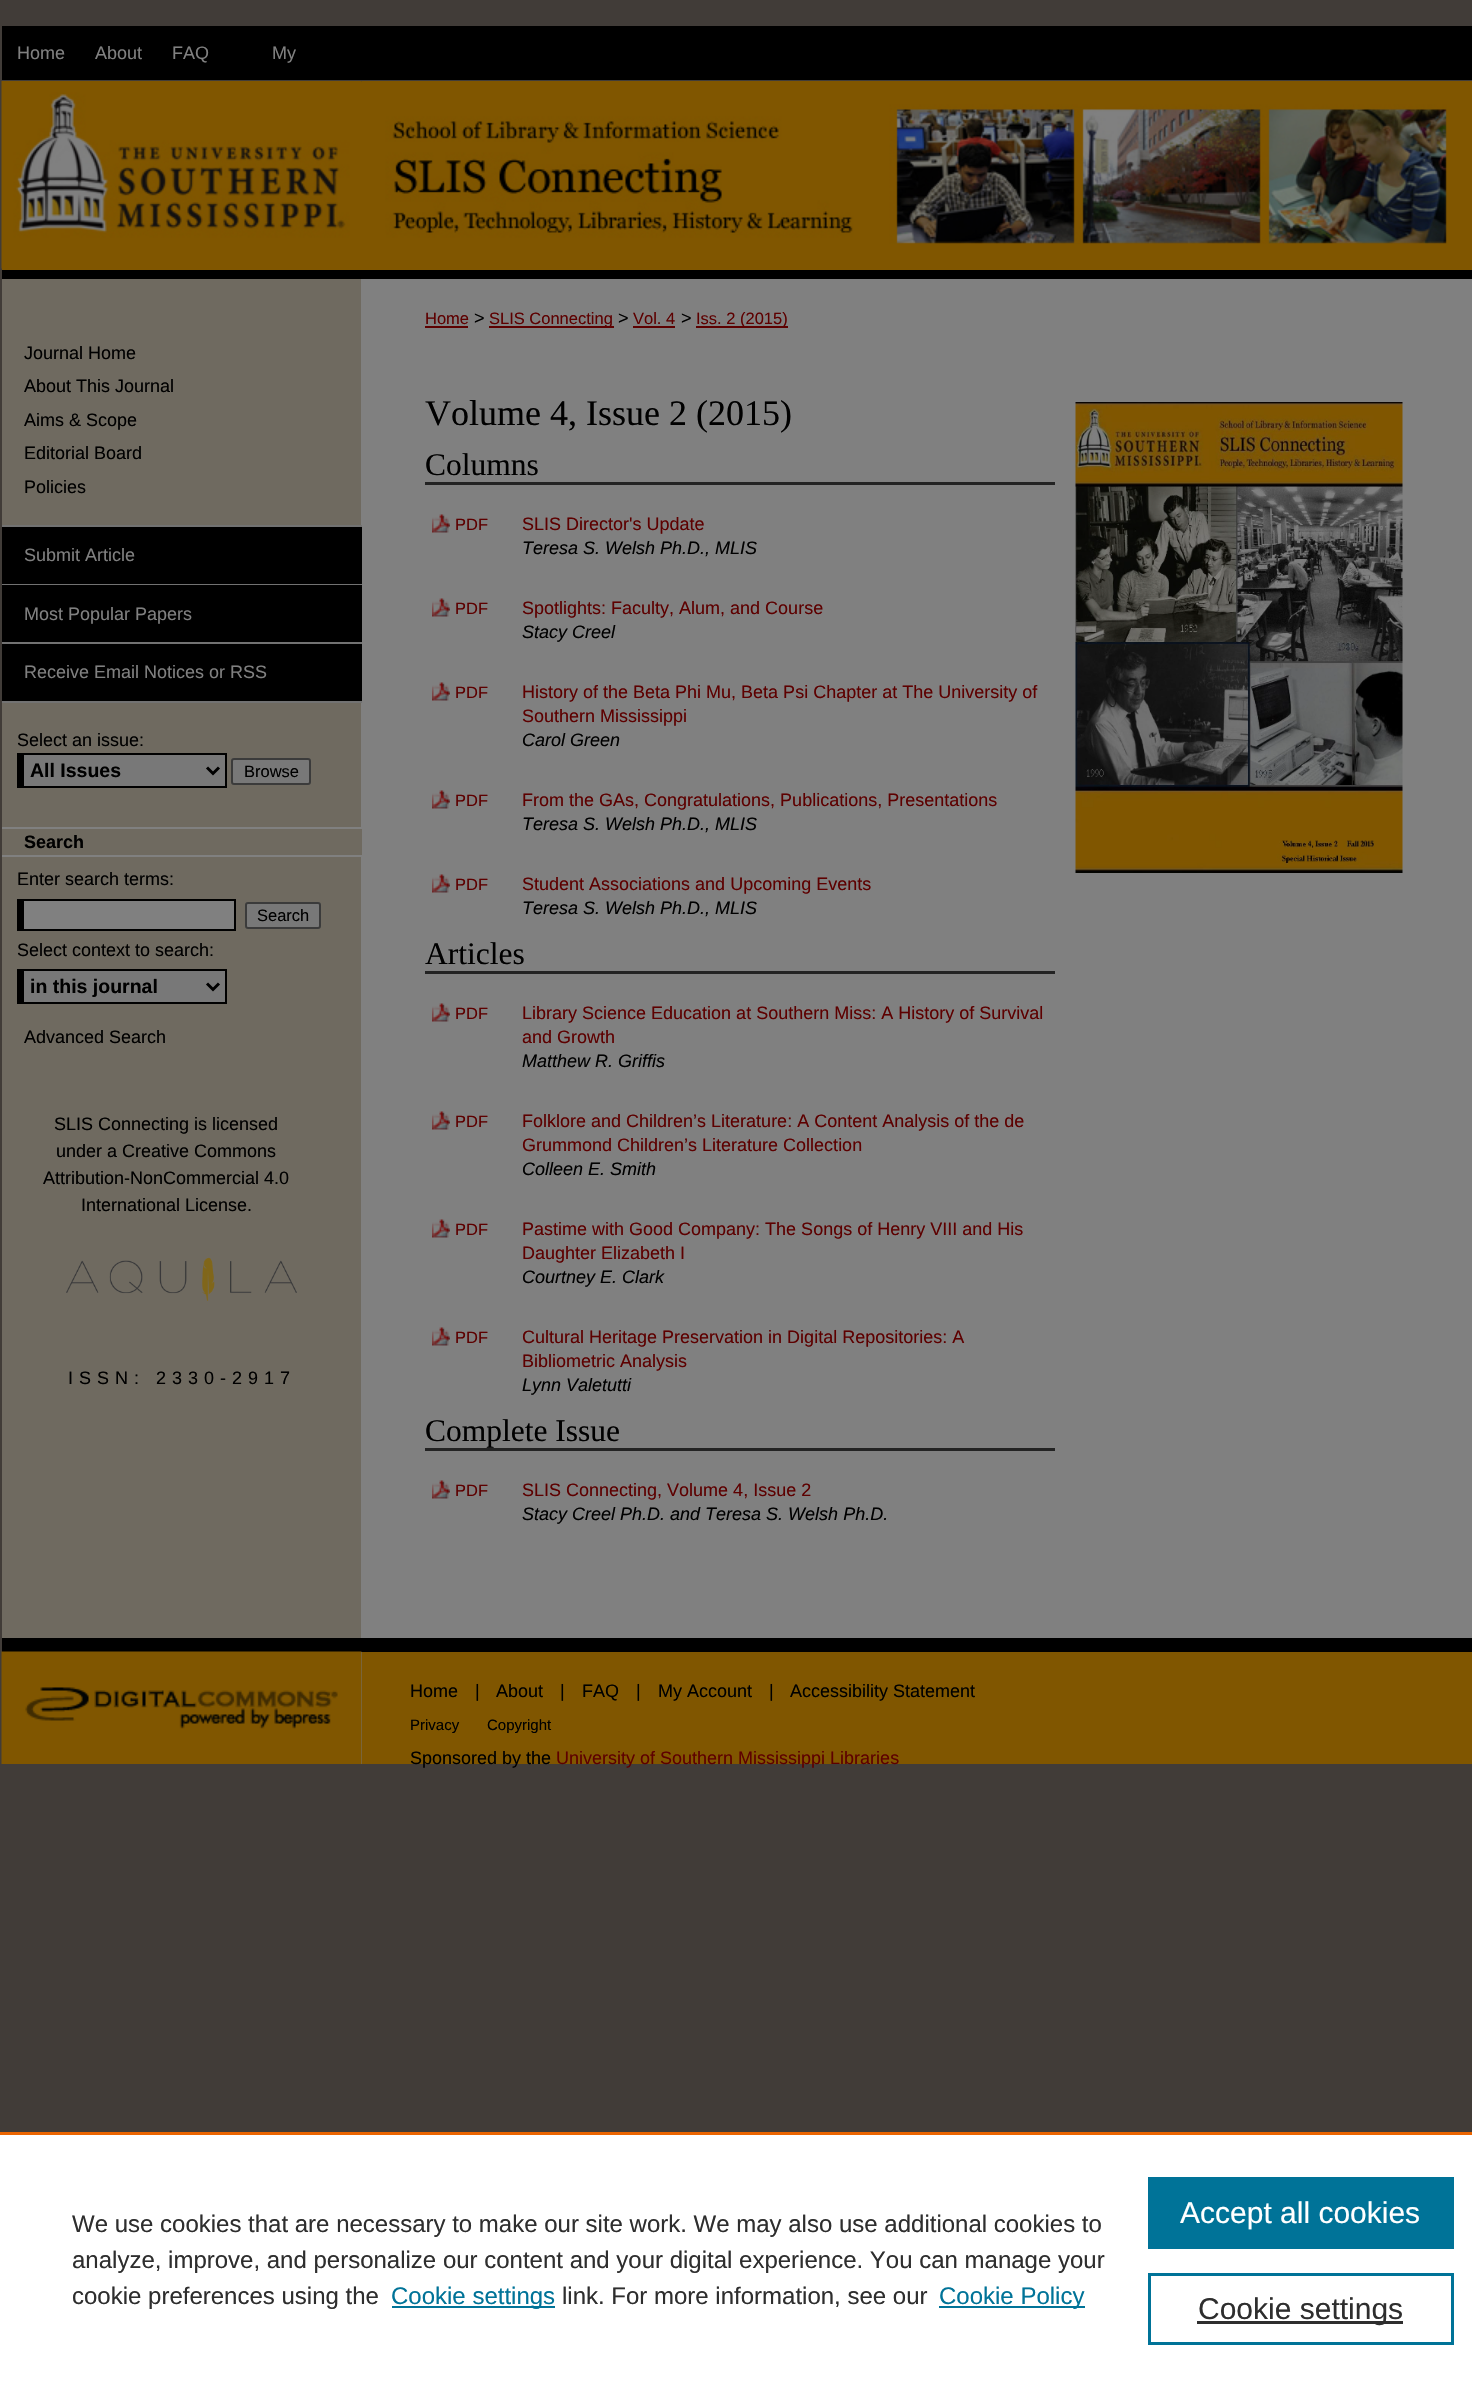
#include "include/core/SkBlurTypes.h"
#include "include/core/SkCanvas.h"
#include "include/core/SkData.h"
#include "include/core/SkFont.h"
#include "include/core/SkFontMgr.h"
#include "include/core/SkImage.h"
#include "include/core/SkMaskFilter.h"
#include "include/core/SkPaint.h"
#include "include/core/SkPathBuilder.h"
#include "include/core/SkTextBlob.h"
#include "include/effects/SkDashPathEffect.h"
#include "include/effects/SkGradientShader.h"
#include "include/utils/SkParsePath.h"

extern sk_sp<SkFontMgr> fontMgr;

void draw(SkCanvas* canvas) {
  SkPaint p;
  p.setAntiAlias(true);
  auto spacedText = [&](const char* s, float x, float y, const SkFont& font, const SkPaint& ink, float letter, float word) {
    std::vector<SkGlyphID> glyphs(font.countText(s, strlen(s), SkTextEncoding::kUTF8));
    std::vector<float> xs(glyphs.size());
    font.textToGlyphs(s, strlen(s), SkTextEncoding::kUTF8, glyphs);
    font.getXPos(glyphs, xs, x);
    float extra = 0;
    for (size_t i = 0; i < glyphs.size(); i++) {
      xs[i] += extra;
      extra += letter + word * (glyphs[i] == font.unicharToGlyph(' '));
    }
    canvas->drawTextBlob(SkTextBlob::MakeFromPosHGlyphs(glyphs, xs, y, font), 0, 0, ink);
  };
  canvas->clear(SkColorSetRGB(65, 60, 56));
  p.setColor(SkColorSetRGB(128, 86, 0));
  canvas->drawRect(SkRect::MakeLTRB(2, 82, 1472, 270), p);
  p.setColor(SK_ColorBLACK);
  canvas->drawRect(SkRect::MakeLTRB(2, 270, 1472, 279), p);
  canvas->drawRect(SkRect::MakeLTRB(2, 26, 1472, 80), p);
  canvas->drawImageRect(SkImages::DeferredFromEncodedData(SkData::MakeFromFileName("images/1.png")), SkRect::MakeLTRB(1, 81, 362, 269), SkSamplingOptions());
  p.setColor(SkColorSetRGB(128, 86, 0));
  canvas->drawRect(SkRect::MakeLTRB(362, 81, 1472, 82), p);
  canvas->drawImageRect(SkImages::DeferredFromEncodedData(SkData::MakeFromFileName("images/2.png")), SkRect::MakeLTRB(361, 81, 1447, 244), SkSamplingOptions());
  p.setColor(SkColorSetRGB(111, 106, 96));
  canvas->drawRect(SkRect::MakeLTRB(2, 279, 361, 1638), p);
  p.setColor(SkColorSetRGB(128, 128, 128));
  canvas->drawRect(SkRect::MakeLTRB(361, 279, 1472, 1638), p);
  p.setColor(SkColorSetRGB(114, 114, 114));
  canvas->drawRect(SkRect::MakeLTRB(2, 525, 362, 527), p);
  p.setColor(SK_ColorBLACK);
  canvas->drawRect(SkRect::MakeLTRB(2, 527, 362, 584), p);
  p.setColor(SkColorSetRGB(114, 114, 114));
  canvas->drawRect(SkRect::MakeLTRB(2, 584, 362, 585), p);
  p.setColor(SK_ColorBLACK);
  canvas->drawRect(SkRect::MakeLTRB(2, 585, 362, 642), p);
  p.setColor(SkColorSetRGB(114, 114, 114));
  canvas->drawRect(SkRect::MakeLTRB(2, 642, 362, 644), p);
  p.setColor(SK_ColorBLACK);
  canvas->drawRect(SkRect::MakeLTRB(2, 644, 362, 701), p);
  p.setColor(SkColorSetRGB(114, 114, 114));
  canvas->drawRect(SkRect::MakeLTRB(2, 701, 362, 703), p);
  p.setColor(SkColorSetRGB(120, 120, 120));
  canvas->drawRect(SkRect::MakeLTRB(24, 755, 225, 786), p);
  p.setColor(SK_ColorBLACK);
  canvas->drawRect(SkRect::MakeLTRB(17, 753, 227, 755), p);
  canvas->drawRect(SkRect::MakeLTRB(225, 753, 227, 788), p);
  canvas->drawRect(SkRect::MakeLTRB(17, 786, 227, 788), p);
  canvas->drawRect(SkRect::MakeLTRB(17, 753, 24, 788), p);
  p.setStyle(SkPaint::kStroke_Style);
  p.setStrokeWidth(3);
  canvas->drawPath(SkPathBuilder().moveTo(207, 767.5f).lineTo(213, 773.5f).lineTo(219, 767.5f).detach(), p);
  p.setStyle(SkPaint::kFill_Style);
  p.setColor(SkColorSetRGB(120, 120, 120));
  canvas->drawRoundRect(SkRect::MakeLTRB(232, 759, 310, 784), 2, 2, p);
  p.setStyle(SkPaint::kStroke_Style);
  p.setStrokeWidth(2);
  p.setColor(SkColorSetRGB(59, 59, 59));
  canvas->drawRoundRect(SkRect::MakeLTRB(232, 759, 310, 784), 2, 2, p);
  p.setStyle(SkPaint::kFill_Style);
  p.setColor(SkColorSetRGB(111, 106, 96));
  canvas->drawRect(SkRect::MakeLTRB(361, 829, 362, 855), p);
  p.setColor(SkColorSetRGB(128, 128, 128));
  canvas->drawRect(SkRect::MakeLTRB(2, 827, 362, 829), p);
  canvas->drawRect(SkRect::MakeLTRB(2, 855, 362, 857), p);
  canvas->drawRect(SkRect::MakeLTRB(24, 901, 234, 929), p);
  p.setColor(SK_ColorBLACK);
  canvas->drawRect(SkRect::MakeLTRB(17, 899, 236, 901), p);
  canvas->drawRect(SkRect::MakeLTRB(234, 899, 236, 930), p);
  canvas->drawRect(SkRect::MakeLTRB(17, 929, 236, 931), p);
  canvas->drawRect(SkRect::MakeLTRB(17, 899, 24, 930), p);
  p.setColor(SkColorSetRGB(120, 120, 120));
  canvas->drawRoundRect(SkRect::MakeLTRB(246, 903, 320, 928), 2, 2, p);
  p.setStyle(SkPaint::kStroke_Style);
  p.setColor(SkColorSetRGB(59, 59, 59));
  canvas->drawRoundRect(SkRect::MakeLTRB(246, 903, 320, 928), 2, 2, p);
  p.setStyle(SkPaint::kFill_Style);
  p.setColor(SkColorSetRGB(120, 120, 120));
  canvas->drawRect(SkRect::MakeLTRB(24, 971, 225, 1002), p);
  p.setColor(SK_ColorBLACK);
  canvas->drawRect(SkRect::MakeLTRB(17, 969, 227, 971), p);
  canvas->drawRect(SkRect::MakeLTRB(225, 969, 227, 1004), p);
  canvas->drawRect(SkRect::MakeLTRB(17, 1002, 227, 1004), p);
  canvas->drawRect(SkRect::MakeLTRB(17, 969, 24, 1004), p);
  p.setStyle(SkPaint::kStroke_Style);
  p.setStrokeWidth(3);
  canvas->drawPath(SkPathBuilder().moveTo(207, 983.5f).lineTo(213, 989.5f).lineTo(219, 983.5f).detach(), p);
  canvas->drawImageRect(SkImages::DeferredFromEncodedData(SkData::MakeFromFileName("images/3.png")), SkRect::MakeLTRB(66, 1257, 297, 1301), SkSamplingOptions());
  p.setStyle(SkPaint::kFill_Style);
  p.setColor(SkColorSetRGB(93, 0, 0));
  canvas->drawRect(SkRect::MakeLTRB(425, 326, 468, 328), p);
  canvas->drawRect(SkRect::MakeLTRB(489, 326, 614, 328), p);
  canvas->drawRect(SkRect::MakeLTRB(633, 326, 675, 328), p);
  canvas->drawRect(SkRect::MakeLTRB(696, 326, 788, 328), p);
  p.setColor(SkColorSetRGB(35, 35, 35));
  canvas->drawRect(SkRect::MakeLTRB(425, 482, 1055, 485), p);
  canvas->drawImageRect(SkImages::DeferredFromEncodedData(SkData::MakeFromFileName("images/4.png")), SkRect::MakeLTRB(432, 514, 450, 533), SkSamplingOptions());
  canvas->drawImageRect(SkImages::DeferredFromEncodedData(SkData::MakeFromFileName("images/4.png")), SkRect::MakeLTRB(432, 598, 450, 617), SkSamplingOptions());
  canvas->drawImageRect(SkImages::DeferredFromEncodedData(SkData::MakeFromFileName("images/4.png")), SkRect::MakeLTRB(432, 682, 450, 701), SkSamplingOptions());
  canvas->drawImageRect(SkImages::DeferredFromEncodedData(SkData::MakeFromFileName("images/4.png")), SkRect::MakeLTRB(432, 790, 450, 809), SkSamplingOptions());
  canvas->drawImageRect(SkImages::DeferredFromEncodedData(SkData::MakeFromFileName("images/4.png")), SkRect::MakeLTRB(432, 874, 450, 893), SkSamplingOptions());
  canvas->drawRect(SkRect::MakeLTRB(425, 971, 1055, 974), p);
  canvas->drawImageRect(SkImages::DeferredFromEncodedData(SkData::MakeFromFileName("images/4.png")), SkRect::MakeLTRB(432, 1003, 450, 1022), SkSamplingOptions());
  canvas->drawImageRect(SkImages::DeferredFromEncodedData(SkData::MakeFromFileName("images/4.png")), SkRect::MakeLTRB(432, 1111, 450, 1130), SkSamplingOptions());
  canvas->drawImageRect(SkImages::DeferredFromEncodedData(SkData::MakeFromFileName("images/4.png")), SkRect::MakeLTRB(432, 1219, 450, 1238), SkSamplingOptions());
  canvas->drawImageRect(SkImages::DeferredFromEncodedData(SkData::MakeFromFileName("images/4.png")), SkRect::MakeLTRB(432, 1327, 450, 1346), SkSamplingOptions());
  canvas->drawRect(SkRect::MakeLTRB(425, 1448, 1055, 1451), p);
  canvas->drawImageRect(SkImages::DeferredFromEncodedData(SkData::MakeFromFileName("images/4.png")), SkRect::MakeLTRB(432, 1480, 450, 1499), SkSamplingOptions());
  canvas->drawImageRect(SkImages::DeferredFromEncodedData(SkData::MakeFromFileName("images/5.png")), SkRect::MakeLTRB(1075, 402, 1403, 873), SkSamplingOptions());
  p.setColor(SkColorSetRGB(128, 86, 0));
  canvas->drawRect(SkRect::MakeLTRB(362, 1652, 1472, 1764), p);
  p.setColor(SK_ColorBLACK);
  canvas->drawRect(SkRect::MakeLTRB(2, 1638, 1472, 1652), p);
  p.setColor(SkColorSetRGB(115, 115, 115));
  canvas->drawRect(SkRect::MakeLTRB(361, 1652, 362, 1764), p);
  canvas->drawImageRect(SkImages::DeferredFromEncodedData(SkData::MakeFromFileName("images/6.png")), SkRect::MakeLTRB(1, 1651, 362, 1764), SkSamplingOptions());
  p.setColor(SK_ColorWHITE);
  canvas->drawRect(SkRect::MakeLTRB(0, 2135, 1472, 2386), p);
  p.setColor(SkColorSetRGB(235, 101, 0));
  canvas->drawRect(SkRect::MakeLTRB(0, 2132, 1472, 2135), p);
  p.setColor(SkColorSetRGB(0, 115, 152));
  canvas->drawRect(SkRect::MakeLTRB(392, 2306, 555, 2308), p);
  canvas->drawRect(SkRect::MakeLTRB(939, 2306, 1085, 2308), p);
  canvas->drawRect(SkRect::MakeLTRB(1148, 2177, 1454, 2249), p);
  p.setStyle(SkPaint::kStroke_Style);
  canvas->drawRect(SkRect::MakeLTRB(1149.5f, 2274.5f, 1452.5f, 2343.5f), p);
  p.setStyle(SkPaint::kFill_Style);
  p.setColor(SkColorSetRGB(46, 46, 46));
  canvas->drawRect(SkRect::MakeLTRB(1197, 2321, 1403, 2324), p);
  SkFont font1(fontMgr->matchFamilyStyle("Liberation Sans", SkFontStyle::Normal()), 18);
  font1.setSubpixel(true);
  p.setColor(SkColorSetRGB(128, 128, 128));
  canvas->drawString("Home", 17, 59, font1, p);
  canvas->drawString("About", 95, 59, font1, p);
  canvas->drawString("FAQ", 172, 59, font1, p);
  canvas->drawString("My", 272, 59, font1, p);
  p.setColor(SK_ColorBLACK);
  canvas->drawString("Journal Home", 24, 359, font1, p);
  canvas->drawString("About This Journal", 24, 392, font1, p);
  canvas->drawString("Aims & Scope", 24, 426, font1, p);
  canvas->drawString("Editorial Board", 24, 459, font1, p);
  canvas->drawString("Policies", 24, 493, font1, p);
  p.setColor(SkColorSetRGB(128, 128, 128));
  canvas->drawString("Submit Article", 24, 561, font1, p);
  canvas->drawString("Most Popular Papers", 24, 620, font1, p);
  canvas->drawString("Receive Email Notices or RSS", 24, 678, font1, p);
  p.setColor(SK_ColorBLACK);
  canvas->drawString("Select an issue:", 17, 746, font1, p);
  SkFont font2(fontMgr->matchFamilyStyle("Liberation Sans", SkFontStyle::Bold()), 19.5f);
  font2.setSubpixel(true);
  canvas->drawString("All Issues", 30, 777, font2, p);
  SkFont font3(fontMgr->matchFamilyStyle("Liberation Sans", SkFontStyle::Normal()), 16.5f);
  font3.setSubpixel(true);
  canvas->drawString("Browse", 244, 777, font3, p);
  SkFont font4(fontMgr->matchFamilyStyle("Liberation Sans", SkFontStyle::Bold()), 18);
  font4.setSubpixel(true);
  canvas->drawString("Search", 24, 848, font4, p);
  canvas->drawString("Enter search terms:", 17, 885, font1, p);
  canvas->drawString("Search", 257, 921, font3, p);
  canvas->drawString("Select context to search:", 17, 956, font1, p);
  canvas->drawString("in this journal", 30, 993, font2, p);
  canvas->drawString("Advanced Search", 24, 1043, font1, p);
  canvas->drawString("SLIS Connecting is licensed", 54, 1130, font1, p);
  canvas->drawString("under a Creative Commons", 56, 1157, font1, p);
  canvas->drawString("Attribution-NonCommercial 4.0", 43, 1184, font1, p);
  canvas->drawString("International License.", 81, 1211, font1, p);
  spacedText("ISSN: 2330-2917", 68, 1384, font1, p, 6, 0);
  p.setColor(SkColorSetRGB(93, 0, 0));
  canvas->drawString("Home", 425, 324, font3, p);
  p.setColor(SK_ColorBLACK);
  canvas->drawString(">", 474, 324, font1, p);
  p.setColor(SkColorSetRGB(93, 0, 0));
  canvas->drawString("SLIS Connecting", 489, 324, font3, p);
  p.setColor(SK_ColorBLACK);
  canvas->drawString(">", 618, 324, font1, p);
  p.setColor(SkColorSetRGB(93, 0, 0));
  canvas->drawString("Vol. 4", 633, 324, font3, p);
  p.setColor(SK_ColorBLACK);
  canvas->drawString(">", 681, 324, font1, p);
  p.setColor(SkColorSetRGB(93, 0, 0));
  canvas->drawString("Iss. 2 (2015)", 696, 324, font3, p);
  SkFont font5(fontMgr->matchFamilyStyle("Liberation Serif", SkFontStyle::Normal()), 36);
  font5.setSubpixel(true);
  p.setColor(SK_ColorBLACK);
  canvas->drawString("Volume 4, Issue 2 (2015)", 425, 425, font5, p);
  SkFont font6(fontMgr->matchFamilyStyle("Liberation Serif", SkFontStyle::Normal()), 31.5f);
  font6.setSubpixel(true);
  canvas->drawString("Columns", 425, 475, font6, p);
  p.setColor(SkColorSetRGB(93, 0, 0));
  canvas->drawString("PDF", 455, 530, font3, p);
  canvas->drawString("SLIS Director's Update", 522, 530, font1, p);
  SkFont font7(fontMgr->matchFamilyStyle("Liberation Sans", SkFontStyle::Italic()), 18);
  font7.setSubpixel(true);
  p.setColor(SK_ColorBLACK);
  canvas->drawString("Teresa S. Welsh Ph.D., MLIS", 522, 554, font7, p);
  p.setColor(SkColorSetRGB(93, 0, 0));
  canvas->drawString("PDF", 455, 614, font3, p);
  canvas->drawString("Spotlights: Faculty, Alum, and Course", 522, 614, font1, p);
  p.setColor(SK_ColorBLACK);
  canvas->drawString("Stacy Creel", 522, 638, font7, p);
  p.setColor(SkColorSetRGB(93, 0, 0));
  canvas->drawString("PDF", 455, 698, font3, p);
  canvas->drawString("History of the Beta Phi Mu, Beta Psi Chapter at The University of", 522, 698, font1, p);
  canvas->drawString("Southern Mississippi", 522, 722, font1, p);
  p.setColor(SK_ColorBLACK);
  canvas->drawString("Carol Green", 522, 746, font7, p);
  p.setColor(SkColorSetRGB(93, 0, 0));
  canvas->drawString("PDF", 455, 806, font3, p);
  canvas->drawString("From the GAs, Congratulations, Publications, Presentations", 522, 806, font1, p);
  p.setColor(SK_ColorBLACK);
  canvas->drawString("Teresa S. Welsh Ph.D., MLIS", 522, 830, font7, p);
  p.setColor(SkColorSetRGB(93, 0, 0));
  canvas->drawString("PDF", 455, 890, font3, p);
  canvas->drawString("Student Associations and Upcoming Events", 522, 890, font1, p);
  p.setColor(SK_ColorBLACK);
  canvas->drawString("Teresa S. Welsh Ph.D., MLIS", 522, 914, font7, p);
  canvas->drawString("Articles", 425, 964, font6, p);
  p.setColor(SkColorSetRGB(93, 0, 0));
  canvas->drawString("PDF", 455, 1019, font3, p);
  canvas->drawString("Library Science Education at Southern Miss: A History of Survival", 522, 1019, font1, p);
  canvas->drawString("and Growth", 522, 1043, font1, p);
  p.setColor(SK_ColorBLACK);
  canvas->drawString("Matthew R. Griffis", 522, 1067, font7, p);
  p.setColor(SkColorSetRGB(93, 0, 0));
  canvas->drawString("PDF", 455, 1127, font3, p);
  canvas->drawString("Folklore and Children’s Literature: A Content Analysis of the de", 522, 1127, font1, p);
  canvas->drawString("Grummond Children’s Literature Collection", 522, 1151, font1, p);
  p.setColor(SK_ColorBLACK);
  canvas->drawString("Colleen E. Smith", 522, 1175, font7, p);
  p.setColor(SkColorSetRGB(93, 0, 0));
  canvas->drawString("PDF", 455, 1235, font3, p);
  canvas->drawString("Pastime with Good Company: The Songs of Henry VIII and His", 522, 1235, font1, p);
  canvas->drawString("Daughter Elizabeth I", 522, 1259, font1, p);
  p.setColor(SK_ColorBLACK);
  canvas->drawString("Courtney E. Clark", 522, 1283, font7, p);
  p.setColor(SkColorSetRGB(93, 0, 0));
  canvas->drawString("PDF", 455, 1343, font3, p);
  canvas->drawString("Cultural Heritage Preservation in Digital Repositories: A", 522, 1343, font1, p);
  canvas->drawString("Bibliometric Analysis", 522, 1367, font1, p);
  p.setColor(SK_ColorBLACK);
  canvas->drawString("Lynn Valetutti", 522, 1391, font7, p);
  canvas->drawString("Complete Issue", 425, 1441, font6, p);
  p.setColor(SkColorSetRGB(93, 0, 0));
  canvas->drawString("PDF", 455, 1496, font3, p);
  canvas->drawString("SLIS Connecting, Volume 4, Issue 2", 522, 1496, font1, p);
  p.setColor(SK_ColorBLACK);
  canvas->drawString("Stacy Creel Ph.D. and Teresa S. Welsh Ph.D.", 522, 1520, font7, p);
  canvas->drawString("Home", 410, 1697, font1, p);
  canvas->drawString("|", 475, 1697, font1, p);
  canvas->drawString("About", 496, 1697, font1, p);
  canvas->drawString("|", 560, 1697, font1, p);
  canvas->drawString("FAQ", 582, 1697, font1, p);
  canvas->drawString("|", 636, 1697, font1, p);
  canvas->drawString("My Account", 658, 1697, font1, p);
  canvas->drawString("|", 769, 1697, font1, p);
  canvas->drawString("Accessibility Statement", 790, 1697, font1, p);
  SkFont font8(fontMgr->matchFamilyStyle("Liberation Sans", SkFontStyle::Normal()), 15);
  font8.setSubpixel(true);
  canvas->drawString("Privacy", 410, 1730, font8, p);
  canvas->drawString("Copyright", 487, 1730, font8, p);
  canvas->drawString("Sponsored by the", 410, 1764, font1, p);
  p.setColor(SkColorSetRGB(93, 0, 0));
  canvas->drawString("University of Southern Mississippi Libraries", 556, 1764, font1, p);
  SkFont font9(fontMgr->matchFamilyStyle("Liberation Sans", SkFontStyle::Normal()), 24);
  font9.setSubpixel(true);
  p.setColor(SkColorSetRGB(46, 46, 46));
  canvas->drawString("We use cookies that are necessary to make our site work. We may also use additional cookies to", 72, 2232, font9, p);
  canvas->drawString("analyze, improve, and personalize our content and your digital experience. You can manage your", 72, 2268, font9, p);
  canvas->drawString("cookie preferences using the", 72, 2304, font9, p);
  p.setColor(SkColorSetRGB(0, 115, 152));
  canvas->drawString("Cookie settings", 391, 2304, font9, p);
  p.setColor(SkColorSetRGB(46, 46, 46));
  canvas->drawString("link. For more information, see our", 562, 2304, font9, p);
  p.setColor(SkColorSetRGB(0, 115, 152));
  canvas->drawString("Cookie Policy", 939, 2304, font9, p);
  SkFont font10(fontMgr->matchFamilyStyle("Liberation Sans", SkFontStyle::Normal()), 30);
  font10.setSubpixel(true);
  p.setColor(SK_ColorWHITE);
  canvas->drawString("Accept all cookies", 1180, 2223, font10, p);
  p.setColor(SkColorSetRGB(46, 46, 46));
  canvas->drawString("Cookie settings", 1198, 2319, font10, p);
}
